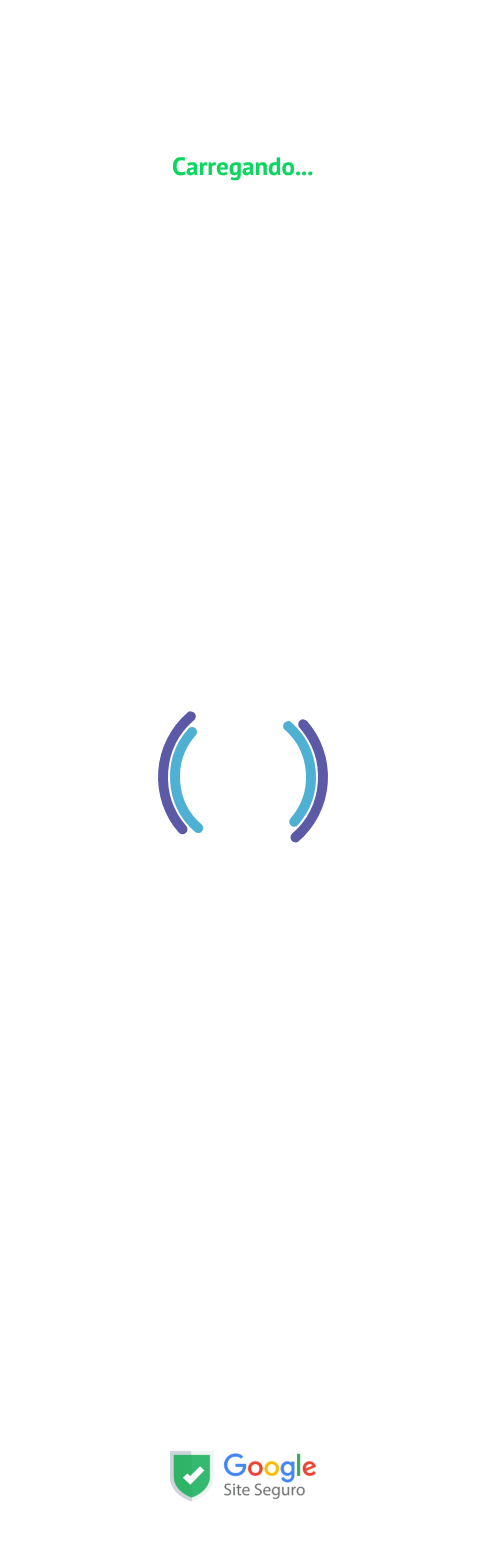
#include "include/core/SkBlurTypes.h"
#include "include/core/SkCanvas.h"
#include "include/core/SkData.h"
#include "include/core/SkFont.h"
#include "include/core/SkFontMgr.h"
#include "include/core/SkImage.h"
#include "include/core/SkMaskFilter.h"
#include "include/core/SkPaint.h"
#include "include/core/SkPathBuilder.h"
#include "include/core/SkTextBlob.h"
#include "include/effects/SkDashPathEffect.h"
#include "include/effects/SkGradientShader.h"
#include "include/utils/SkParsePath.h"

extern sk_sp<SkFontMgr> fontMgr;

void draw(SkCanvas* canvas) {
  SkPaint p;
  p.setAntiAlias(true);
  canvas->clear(SK_ColorWHITE);
  canvas->drawImageRect(SkImages::DeferredFromEncodedData(SkData::MakeFromFileName("images/1.png")), SkRect::MakeLTRB(158, 711, 328, 843), SkSamplingOptions());
  canvas->drawImageRect(SkImages::DeferredFromEncodedData(SkData::MakeFromFileName("images/2.png")), SkRect::MakeLTRB(170, 1450, 317, 1502), SkSamplingOptions());
  SkFont font1(fontMgr->matchFamilyStyle("PT Sans", SkFontStyle::Bold()), 25);
  font1.setSubpixel(true);
  p.setColor(SkColorSetRGB(11, 214, 95));
  canvas->drawString("Carregando...", 172, 175, font1, p);
}
